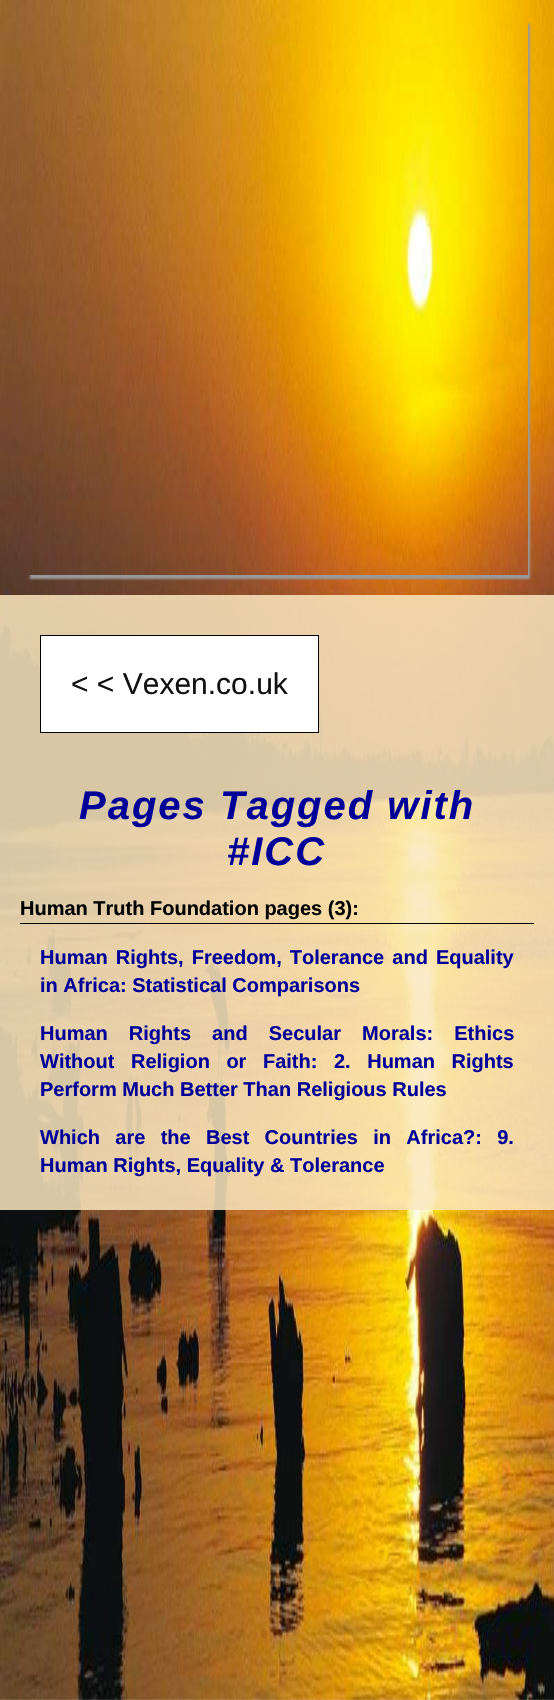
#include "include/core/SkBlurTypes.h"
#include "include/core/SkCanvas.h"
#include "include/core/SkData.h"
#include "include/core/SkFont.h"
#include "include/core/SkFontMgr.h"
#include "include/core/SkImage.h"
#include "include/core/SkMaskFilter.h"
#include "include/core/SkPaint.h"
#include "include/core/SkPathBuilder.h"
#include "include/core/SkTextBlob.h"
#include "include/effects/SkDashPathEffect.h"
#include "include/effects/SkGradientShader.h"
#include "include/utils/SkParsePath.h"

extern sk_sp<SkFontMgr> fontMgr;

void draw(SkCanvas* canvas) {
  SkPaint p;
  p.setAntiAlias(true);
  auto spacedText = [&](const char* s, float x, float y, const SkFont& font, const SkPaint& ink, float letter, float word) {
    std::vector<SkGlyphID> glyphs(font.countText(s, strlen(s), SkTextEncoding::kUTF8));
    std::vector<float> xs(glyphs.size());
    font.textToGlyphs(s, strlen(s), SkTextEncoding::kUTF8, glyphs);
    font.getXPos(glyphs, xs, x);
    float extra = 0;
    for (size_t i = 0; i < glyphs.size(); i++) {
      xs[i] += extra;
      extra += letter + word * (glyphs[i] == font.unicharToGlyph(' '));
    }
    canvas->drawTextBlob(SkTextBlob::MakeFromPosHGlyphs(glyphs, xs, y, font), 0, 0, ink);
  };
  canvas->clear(SK_ColorWHITE);
  canvas->drawImageRect(SkImages::DeferredFromEncodedData(SkData::MakeFromFileName("images/1.png")), SkRect::MakeLTRB(0, 0, 554, 1700), SkSamplingOptions());
  canvas->save();
  canvas->clipPath(SkPathBuilder(SkPathFillType::kEvenOdd).moveTo(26, 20).lineTo(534, 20).lineTo(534, 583).lineTo(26, 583).close().moveTo(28, 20).lineTo(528, 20).lineTo(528, 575).lineTo(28, 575).close().detach(), true);
  p.setColor(SkColorSetRGB(153, 153, 153));
  p.setMaskFilter(SkMaskFilter::MakeBlur(kNormal_SkBlurStyle, 1));
  canvas->drawRect(SkRect::MakeLTRB(30, 24, 530, 579), p);
  p.setMaskFilter(nullptr);
  canvas->restore();
  p.setColor(SkColorSetARGB(217, 250, 230, 190));
  canvas->drawRect(SkRect::MakeLTRB(0, 595, 554, 1210), p);
  p.setColor(SK_ColorWHITE);
  canvas->drawRect(SkRect::MakeLTRB(40.5f, 635.5f, 318.5f, 732.5f), p);
  p.setStyle(SkPaint::kStroke_Style);
  p.setStrokeWidth(1);
  p.setColor(SK_ColorBLACK);
  canvas->drawRect(SkRect::MakeLTRB(40.5f, 635.5f, 318.5f, 732.5f), p);
  p.setStyle(SkPaint::kFill_Style);
  canvas->drawRect(SkRect::MakeLTRB(20, 923, 534, 924), p);
  SkFont font1(fontMgr->matchFamilyStyle("Liberation Sans", SkFontStyle::Normal()), 30);
  font1.setSubpixel(true);
  p.setColor(SkColorSetRGB(17, 17, 17));
  canvas->drawString("< < Vexen.co.uk", 71, 694, font1, p);
  SkFont font2(fontMgr->matchFamilyStyle("Liberation Sans", SkFontStyle::BoldItalic()), 40);
  font2.setSubpixel(true);
  p.setColor(SkColorSetRGB(0, 0, 153));
  spacedText("Pages Tagged with", 79, 819, font2, p, 2, 0);
  spacedText("#ICC", 227, 865, font2, p, 2, 0);
  SkFont font3(fontMgr->matchFamilyStyle("Liberation Sans", SkFontStyle::Bold()), 20);
  font3.setSubpixel(true);
  p.setColor(SK_ColorBLACK);
  canvas->drawString("Human Truth Foundation pages (3):", 20, 915, font3, p);
  p.setColor(SkColorSetRGB(0, 0, 153));
  spacedText("Human Rights, Freedom, Tolerance and Equality", 40, 964, font3, p, 0, 2.5f);
  canvas->drawString("in Africa: Statistical Comparisons", 40, 992, font3, p);
  spacedText("Human Rights and Secular Morals: Ethics", 40, 1040, font3, p, 0, 15.5f);
  spacedText("Without Religion or Faith: 2. Human Rights", 40, 1068, font3, p, 0, 11);
  canvas->drawString("Perform Much Better Than Religious Rules", 40, 1096, font3, p);
  spacedText("Which are the Best Countries in Africa?: 9.", 40, 1144, font3, p, 0, 9.75f);
  canvas->drawString("Human Rights, Equality & Tolerance", 40, 1172, font3, p);
}
